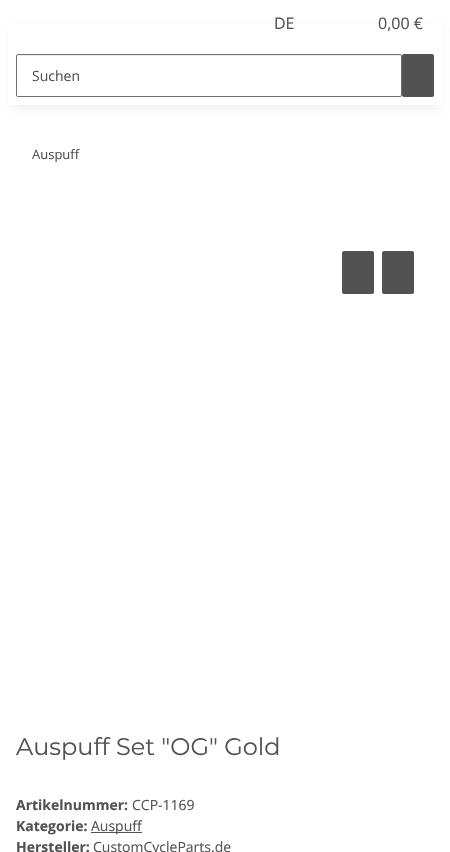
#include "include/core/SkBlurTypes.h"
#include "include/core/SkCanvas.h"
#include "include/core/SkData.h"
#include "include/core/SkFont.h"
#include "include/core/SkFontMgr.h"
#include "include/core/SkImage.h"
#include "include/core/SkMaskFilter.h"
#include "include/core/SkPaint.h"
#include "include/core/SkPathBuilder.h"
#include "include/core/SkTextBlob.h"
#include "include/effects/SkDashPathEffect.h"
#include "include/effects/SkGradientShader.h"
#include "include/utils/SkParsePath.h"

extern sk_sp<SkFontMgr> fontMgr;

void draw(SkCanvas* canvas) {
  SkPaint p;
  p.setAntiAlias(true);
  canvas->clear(SK_ColorWHITE);
  p.setColor(SkColorSetARGB(15, 0, 0, 0));
  p.setMaskFilter(SkMaskFilter::MakeBlur(kNormal_SkBlurStyle, 4.5f));
  canvas->drawRect(SkRect::MakeLTRB(12, 28, 438, 109), p);
  p.setMaskFilter(nullptr);
  p.setColor(SK_ColorWHITE);
  canvas->drawRect(SkRect::MakeLTRB(8, 24, 442, 105), p);
  p.setColor(SkColorSetRGB(236, 236, 236));
  canvas->drawPath(SkPathBuilder().moveTo(18, 56).lineTo(400, 56).lineTo(401, 56).lineTo(401, 57).lineTo(401, 56).lineTo(400, 55).lineTo(18, 55).cubicTo(17, 55, 17, 56, 17, 57).cubicTo(17, 56, 17, 56, 18, 56).close().detach(), p);
  p.setStyle(SkPaint::kStroke_Style);
  p.setStrokeWidth(1);
  p.setColor(SkColorSetRGB(112, 112, 112));
  canvas->drawRoundRect(SkRect::MakeLTRB(16.5f, 54.5f, 401.5f, 96.5f), 1.5f, 1.5f, p);
  p.setStyle(SkPaint::kFill_Style);
  p.setColor(SkColorSetRGB(82, 82, 82));
  canvas->drawRoundRect(SkRect::MakeLTRB(402, 54, 434, 97), 2, 2, p);
  canvas->drawRoundRect(SkRect::MakeLTRB(342, 251, 374, 294), 2, 2, p);
  canvas->drawRoundRect(SkRect::MakeLTRB(382, 251, 414, 294), 2, 2, p);
  canvas->drawRect(SkRect::MakeLTRB(91, 832, 142, 833), p);
  SkFont font1(fontMgr->matchFamilyStyle("Open Sans", SkFontStyle::Normal()), 16);
  font1.setSubpixel(true);
  canvas->drawString("DE", 274, 29, font1, p);
  canvas->drawString("0,00 €", 378, 29, font1, p);
  SkFont font2(fontMgr->matchFamilyStyle("Open Sans", SkFontStyle::Normal()), 14);
  font2.setSubpixel(true);
  canvas->drawString("Suchen", 32, 81, font2, p);
  SkFont font3(fontMgr->matchFamilyStyle("Open Sans", SkFontStyle::Normal()), 13);
  font3.setSubpixel(true);
  canvas->drawString("Auspuff", 32, 159, font3, p);
  SkFont font4(fontMgr->matchFamilyStyle("Montserrat", SkFontStyle::Normal()), 24);
  font4.setSubpixel(true);
  canvas->drawString("Auspuff Set \"OG\" Gold", 16, 755, font4, p);
  SkFont font5(fontMgr->matchFamilyStyle("Open Sans", SkFontStyle::Bold()), 14);
  font5.setSubpixel(true);
  canvas->drawString("Artikelnummer:", 16, 810, font5, p);
  canvas->drawString("CCP-1169", 132, 810, font2, p);
  canvas->drawString("Kategorie:", 16, 831, font5, p);
  canvas->drawString("Auspuff", 91, 831, font2, p);
  canvas->drawString("Hersteller:", 16, 852, font5, p);
  canvas->drawString("CustomCycleParts.de", 93, 852, font2, p);
}
